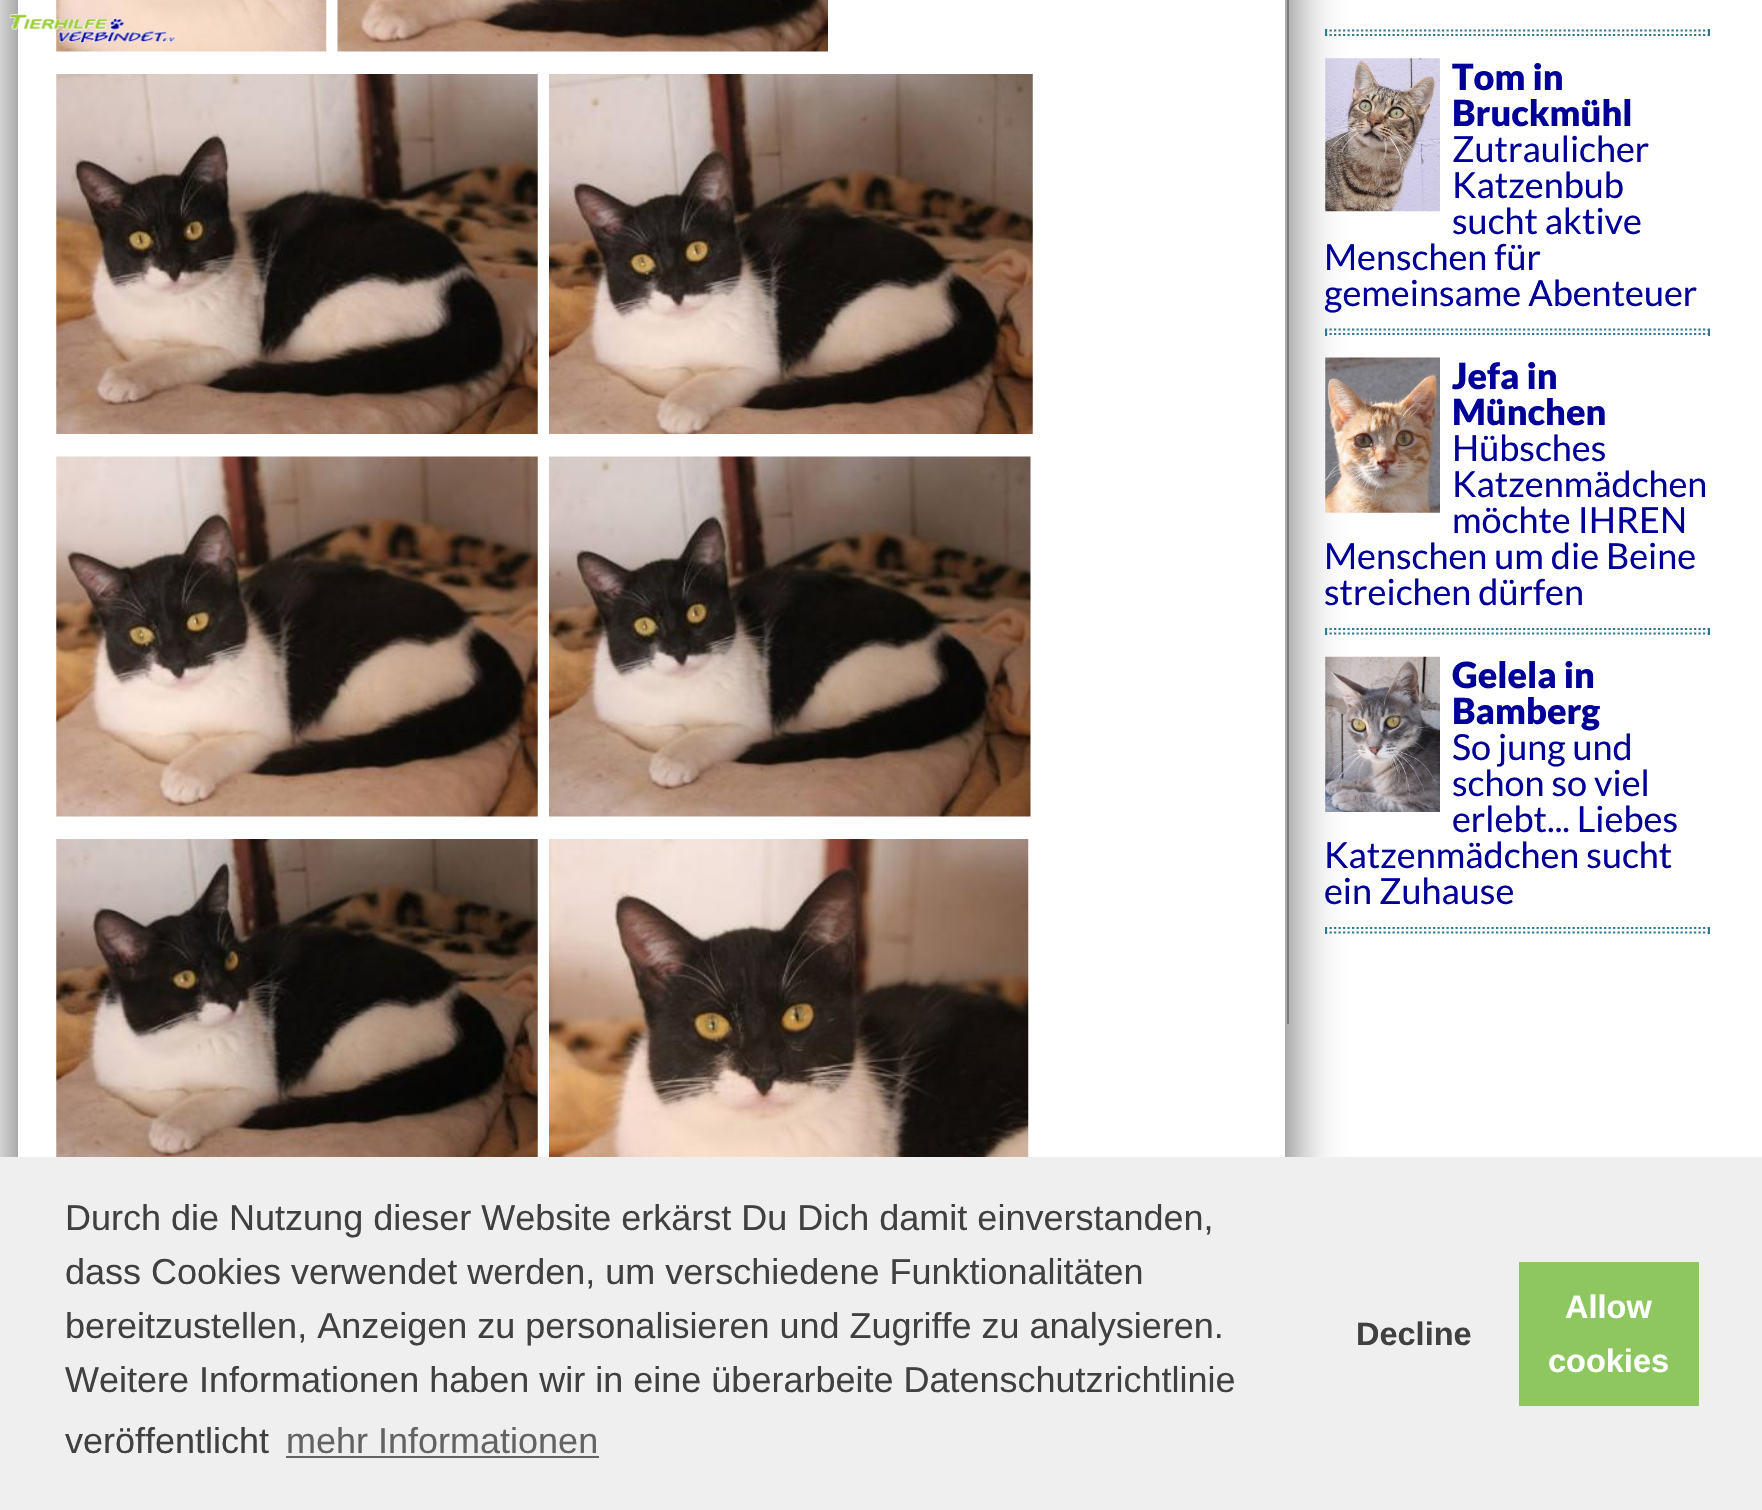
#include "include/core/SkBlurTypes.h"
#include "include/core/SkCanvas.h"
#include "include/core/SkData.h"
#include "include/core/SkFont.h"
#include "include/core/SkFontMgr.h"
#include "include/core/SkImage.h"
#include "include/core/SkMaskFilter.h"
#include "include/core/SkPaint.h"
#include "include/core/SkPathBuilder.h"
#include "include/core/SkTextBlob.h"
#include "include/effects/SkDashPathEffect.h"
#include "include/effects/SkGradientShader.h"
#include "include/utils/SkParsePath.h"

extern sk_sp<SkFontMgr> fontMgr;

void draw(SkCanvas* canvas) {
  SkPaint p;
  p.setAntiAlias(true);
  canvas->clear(SK_ColorWHITE);
  p.setColor(SkColorSetRGB(153, 153, 153));
  canvas->drawRect(SkRect::MakeLTRB(1287, 0, 1289, 1024), p);
  canvas->drawImageRect(SkImages::DeferredFromEncodedData(SkData::MakeFromFileName("images/11.png")), SkRect::MakeLTRB(1325, 58, 1440, 212), SkSamplingOptions());
  canvas->drawImageRect(SkImages::DeferredFromEncodedData(SkData::MakeFromFileName("images/12.png")), SkRect::MakeLTRB(1325, 357, 1440, 513), SkSamplingOptions());
  canvas->drawImageRect(SkImages::DeferredFromEncodedData(SkData::MakeFromFileName("images/13.png")), SkRect::MakeLTRB(1325, 656, 1440, 812), SkSamplingOptions());
  canvas->save();
  canvas->clipPath(SkPathBuilder(SkPathFillType::kEvenOdd).moveTo(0, 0).lineTo(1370, 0).lineTo(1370, 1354).lineTo(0, 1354).close().moveTo(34, -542).lineTo(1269, -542).cubicTo(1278, -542, 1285, -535, 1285, -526).lineTo(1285, 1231).cubicTo(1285, 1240, 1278, 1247, 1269, 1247).lineTo(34, 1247).cubicTo(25, 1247, 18, 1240, 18, 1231).lineTo(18, -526).cubicTo(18, -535, 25, -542, 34, -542).close().detach(), true);
  p.setColor(SkColorSetRGB(85, 85, 85));
  p.setMaskFilter(SkMaskFilter::MakeBlur(kNormal_SkBlurStyle, 28));
  canvas->drawRoundRect(SkRect::MakeLTRB(18, -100, 1285, 1269), 16, 16, p);
  p.setMaskFilter(nullptr);
  canvas->restore();
  canvas->drawImageRect(SkImages::DeferredFromEncodedData(SkData::MakeFromFileName("images/2.png")), SkRect::MakeLTRB(18, 0, 1285, 1157), SkSamplingOptions());
  canvas->drawImageRect(SkImages::DeferredFromEncodedData(SkData::MakeFromFileName("images/3.png")), SkRect::MakeLTRB(56, 0, 327, 52), SkSamplingOptions());
  canvas->drawImageRect(SkImages::DeferredFromEncodedData(SkData::MakeFromFileName("images/1.png")), SkRect::MakeLTRB(9, 14, 176, 43), SkSamplingOptions());
  canvas->drawImageRect(SkImages::DeferredFromEncodedData(SkData::MakeFromFileName("images/4.png")), SkRect::MakeLTRB(337, 0, 828, 52), SkSamplingOptions());
  canvas->drawImageRect(SkImages::DeferredFromEncodedData(SkData::MakeFromFileName("images/5.png")), SkRect::MakeLTRB(56, 74, 538, 434), SkSamplingOptions());
  canvas->drawImageRect(SkImages::DeferredFromEncodedData(SkData::MakeFromFileName("images/6.png")), SkRect::MakeLTRB(549, 74, 1033, 434), SkSamplingOptions());
  canvas->drawImageRect(SkImages::DeferredFromEncodedData(SkData::MakeFromFileName("images/7.png")), SkRect::MakeLTRB(56, 456, 538, 817), SkSamplingOptions());
  canvas->drawImageRect(SkImages::DeferredFromEncodedData(SkData::MakeFromFileName("images/8.png")), SkRect::MakeLTRB(549, 456, 1031, 817), SkSamplingOptions());
  canvas->drawImageRect(SkImages::DeferredFromEncodedData(SkData::MakeFromFileName("images/9.png")), SkRect::MakeLTRB(56, 839, 538, 1157), SkSamplingOptions());
  canvas->drawImageRect(SkImages::DeferredFromEncodedData(SkData::MakeFromFileName("images/10.png")), SkRect::MakeLTRB(549, 839, 1029, 1157), SkSamplingOptions());
  p.setStyle(SkPaint::kStroke_Style);
  p.setStrokeWidth(2.2f);
  p.setColor(SkColorSetRGB(50, 120, 147));
  p.setPathEffect(SkDashPathEffect::Make({{2.25f, 2.25f}}, 0));
  canvas->drawPath(SkPathBuilder().moveTo(1325, 30.5f).lineTo(1710, 30.5f).detach(), p);
  p.setPathEffect(nullptr);
  p.setStyle(SkPaint::kFill_Style);
  canvas->drawRect(SkRect::MakeLTRB(1708, 29, 1710, 36), p);
  p.setStyle(SkPaint::kStroke_Style);
  p.setPathEffect(SkDashPathEffect::Make({{2.25f, 2.25f}}, 0));
  canvas->drawPath(SkPathBuilder().moveTo(1325, 35).lineTo(1710, 35).detach(), p);
  p.setPathEffect(nullptr);
  p.setStyle(SkPaint::kFill_Style);
  canvas->drawRect(SkRect::MakeLTRB(1325, 29, 1327, 36), p);
  p.setStyle(SkPaint::kStroke_Style);
  p.setPathEffect(SkDashPathEffect::Make({{2.25f, 2.25f}}, 0));
  canvas->drawPath(SkPathBuilder().moveTo(1325, 329.5f).lineTo(1710, 329.5f).detach(), p);
  p.setPathEffect(nullptr);
  p.setStyle(SkPaint::kFill_Style);
  canvas->drawRect(SkRect::MakeLTRB(1708, 329, 1710, 336), p);
  p.setStyle(SkPaint::kStroke_Style);
  p.setPathEffect(SkDashPathEffect::Make({{2.25f, 2.25f}}, 0));
  canvas->drawPath(SkPathBuilder().moveTo(1325, 334).lineTo(1710, 334).detach(), p);
  p.setPathEffect(nullptr);
  p.setStyle(SkPaint::kFill_Style);
  canvas->drawRect(SkRect::MakeLTRB(1325, 329, 1327, 336), p);
  p.setStyle(SkPaint::kStroke_Style);
  p.setPathEffect(SkDashPathEffect::Make({{2.25f, 2.25f}}, 0));
  canvas->drawPath(SkPathBuilder().moveTo(1325, 629).lineTo(1710, 629).detach(), p);
  p.setPathEffect(nullptr);
  p.setStyle(SkPaint::kFill_Style);
  canvas->drawRect(SkRect::MakeLTRB(1708, 628, 1710, 635), p);
  p.setStyle(SkPaint::kStroke_Style);
  p.setPathEffect(SkDashPathEffect::Make({{2.25f, 2.25f}}, 0));
  canvas->drawPath(SkPathBuilder().moveTo(1325, 633.5f).lineTo(1710, 633.5f).detach(), p);
  p.setPathEffect(nullptr);
  p.setStyle(SkPaint::kFill_Style);
  canvas->drawRect(SkRect::MakeLTRB(1325, 628, 1327, 635), p);
  p.setStyle(SkPaint::kStroke_Style);
  p.setPathEffect(SkDashPathEffect::Make({{2.25f, 2.25f}}, 0));
  canvas->drawPath(SkPathBuilder().moveTo(1325, 928).lineTo(1710, 928).detach(), p);
  p.setPathEffect(nullptr);
  p.setStyle(SkPaint::kFill_Style);
  canvas->drawRect(SkRect::MakeLTRB(1708, 927, 1710, 934), p);
  p.setStyle(SkPaint::kStroke_Style);
  p.setPathEffect(SkDashPathEffect::Make({{2.25f, 2.25f}}, 0));
  canvas->drawPath(SkPathBuilder().moveTo(1325, 932.5f).lineTo(1710, 932.5f).detach(), p);
  p.setPathEffect(nullptr);
  p.setStyle(SkPaint::kFill_Style);
  canvas->drawRect(SkRect::MakeLTRB(1325, 927, 1327, 934), p);
  p.setColor(SkColorSetRGB(239, 239, 239));
  canvas->drawRect(SkRect::MakeLTRB(0, 1157, 1762, 1510), p);
  p.setColor(SkColorSetRGB(99, 99, 99));
  canvas->drawRect(SkRect::MakeLTRB(286, 1456, 599, 1458), p);
  p.setColor(SkColorSetRGB(142, 199, 96));
  canvas->drawRect(SkRect::MakeLTRB(1519, 1262, 1699, 1406), p);
  SkFont font1(fontMgr->matchFamilyStyle("Lato", SkFontStyle(900, SkFontStyle::kNormal_Width, SkFontStyle::kUpright_Slant)), 36);
  font1.setSubpixel(true);
  p.setColor(SkColorSetRGB(0, 0, 153));
  canvas->drawString("Tom in", 1452, 90, font1, p);
  canvas->drawString("Bruckmühl", 1452, 126, font1, p);
  SkFont font2(fontMgr->matchFamilyStyle("Lato", SkFontStyle::Normal()), 36);
  font2.setSubpixel(true);
  canvas->drawString("Zutraulicher", 1452, 162, font2, p);
  canvas->drawString("Katzenbub", 1452, 198, font2, p);
  canvas->drawString("sucht aktive", 1452, 234, font2, p);
  canvas->drawString("Menschen für", 1324, 270, font2, p);
  canvas->drawString("gemeinsame Abenteuer", 1324, 306, font2, p);
  canvas->drawString("Jefa in", 1452, 389, font1, p);
  canvas->drawString("München", 1452, 425, font1, p);
  canvas->drawString("Hübsches", 1452, 461, font2, p);
  canvas->drawString("Katzenmädchen", 1452, 497, font2, p);
  canvas->drawString("möchte IHREN", 1452, 533, font2, p);
  canvas->drawString("Menschen um die Beine", 1324, 569, font2, p);
  canvas->drawString("streichen dürfen", 1324, 605, font2, p);
  canvas->drawString("Gelela in", 1452, 688, font1, p);
  canvas->drawString("Bamberg", 1452, 724, font1, p);
  canvas->drawString("So jung und", 1452, 760, font2, p);
  canvas->drawString("schon so viel", 1452, 796, font2, p);
  canvas->drawString("erlebt... Liebes", 1452, 832, font2, p);
  canvas->drawString("Katzenmädchen sucht", 1324, 868, font2, p);
  canvas->drawString("ein Zuhause", 1324, 904, font2, p);
  SkFont font3(fontMgr->matchFamilyStyle("Liberation Sans", SkFontStyle::Normal()), 36);
  font3.setSubpixel(true);
  p.setColor(SkColorSetRGB(64, 64, 64));
  canvas->drawString("Durch die Nutzung dieser Website erkärst Du Dich damit einverstanden,", 65, 1230, font3, p);
  canvas->drawString("dass Cookies verwendet werden, um verschiedene Funktionalitäten", 65, 1284, font3, p);
  canvas->drawString("bereitzustellen, Anzeigen zu personalisieren und Zugriffe zu analysieren.", 65, 1338, font3, p);
  canvas->drawString("Weitere Informationen haben wir in eine überarbeite Datenschutzrichtlinie", 65, 1392, font3, p);
  canvas->drawString("veröffentlicht", 65, 1453, font3, p);
  p.setColor(SkColorSetRGB(99, 99, 99));
  canvas->drawString("mehr Informationen", 286, 1453, font3, p);
  SkFont font4(fontMgr->matchFamilyStyle("Liberation Sans", SkFontStyle::Bold()), 32.5f);
  font4.setSubpixel(true);
  p.setColor(SkColorSetRGB(64, 64, 64));
  canvas->drawString("Decline", 1356, 1345, font4, p);
  p.setColor(SK_ColorWHITE);
  canvas->drawString("Allow", 1565, 1318, font4, p);
  canvas->drawString("cookies", 1548, 1372, font4, p);
}
